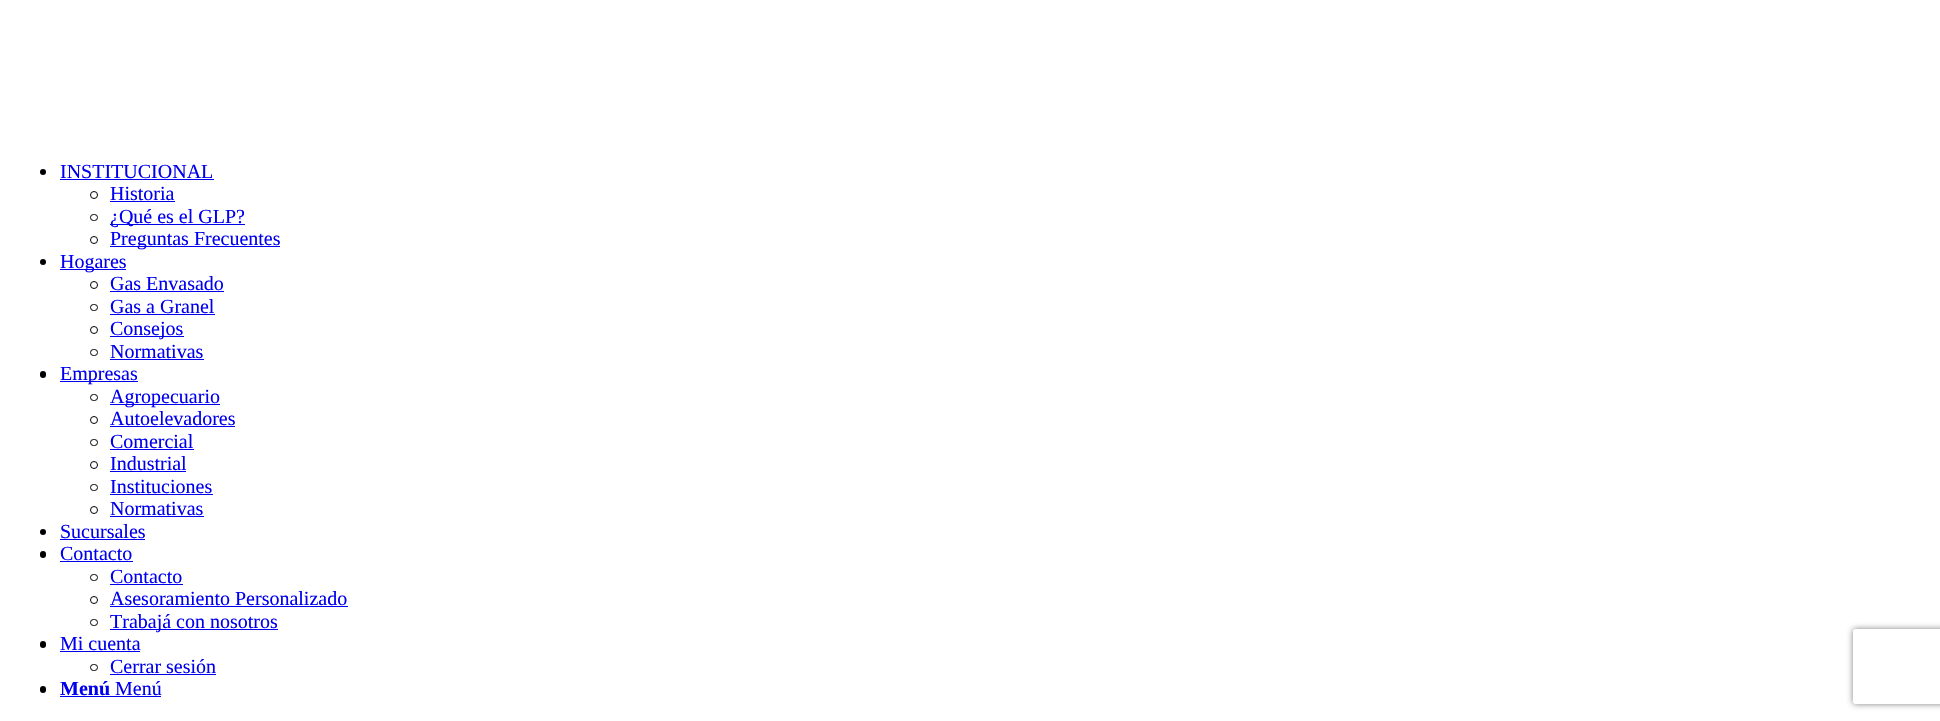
#include "include/core/SkBlurTypes.h"
#include "include/core/SkCanvas.h"
#include "include/core/SkData.h"
#include "include/core/SkFont.h"
#include "include/core/SkFontMgr.h"
#include "include/core/SkImage.h"
#include "include/core/SkMaskFilter.h"
#include "include/core/SkPaint.h"
#include "include/core/SkPathBuilder.h"
#include "include/core/SkTextBlob.h"
#include "include/effects/SkDashPathEffect.h"
#include "include/effects/SkGradientShader.h"
#include "include/utils/SkParsePath.h"

extern sk_sp<SkFontMgr> fontMgr;

void draw(SkCanvas* canvas) {
  SkPaint p;
  p.setAntiAlias(true);
  canvas->clear(SK_ColorWHITE);
  p.setColor(SK_ColorBLACK);
  canvas->drawCircle(43, 172, 3, p);
  p.setColor(SkColorSetRGB(0, 0, 238));
  canvas->drawRect(SkRect::MakeLTRB(60, 179, 214, 180), p);
  p.setStyle(SkPaint::kStroke_Style);
  p.setStrokeWidth(1);
  p.setColor(SK_ColorBLACK);
  canvas->drawCircle(94, 195, 3.5f, p);
  p.setStyle(SkPaint::kFill_Style);
  p.setColor(SkColorSetRGB(0, 0, 238));
  canvas->drawRect(SkRect::MakeLTRB(110, 201, 175, 202), p);
  p.setStyle(SkPaint::kStroke_Style);
  p.setColor(SK_ColorBLACK);
  canvas->drawRoundRect(SkRect::MakeLTRB(90.5f, 214.5f, 97.5f, 220.5f), 3, 3, p);
  p.setStyle(SkPaint::kFill_Style);
  p.setColor(SkColorSetRGB(0, 0, 238));
  canvas->drawRect(SkRect::MakeLTRB(110, 224, 245, 225), p);
  p.setStyle(SkPaint::kStroke_Style);
  p.setColor(SK_ColorBLACK);
  canvas->drawCircle(94, 240, 3.5f, p);
  p.setStyle(SkPaint::kFill_Style);
  p.setColor(SkColorSetRGB(0, 0, 238));
  canvas->drawRect(SkRect::MakeLTRB(110, 246, 280, 247), p);
  p.setColor(SK_ColorBLACK);
  canvas->drawCircle(43, 262, 3, p);
  p.setColor(SkColorSetRGB(0, 0, 238));
  canvas->drawRect(SkRect::MakeLTRB(60, 269, 126, 270), p);
  p.setStyle(SkPaint::kStroke_Style);
  p.setColor(SK_ColorBLACK);
  canvas->drawCircle(94, 285, 3.5f, p);
  p.setStyle(SkPaint::kFill_Style);
  p.setColor(SkColorSetRGB(0, 0, 238));
  canvas->drawRect(SkRect::MakeLTRB(110, 291, 224, 292), p);
  p.setStyle(SkPaint::kStroke_Style);
  p.setColor(SK_ColorBLACK);
  canvas->drawRoundRect(SkRect::MakeLTRB(90.5f, 304.5f, 97.5f, 310.5f), 3, 3, p);
  p.setStyle(SkPaint::kFill_Style);
  p.setColor(SkColorSetRGB(0, 0, 238));
  canvas->drawRect(SkRect::MakeLTRB(110, 314, 215, 315), p);
  p.setStyle(SkPaint::kStroke_Style);
  p.setColor(SK_ColorBLACK);
  canvas->drawCircle(94, 330, 3.5f, p);
  p.setStyle(SkPaint::kFill_Style);
  p.setColor(SkColorSetRGB(0, 0, 238));
  canvas->drawRect(SkRect::MakeLTRB(110, 336, 184, 337), p);
  p.setStyle(SkPaint::kStroke_Style);
  p.setColor(SK_ColorBLACK);
  canvas->drawRoundRect(SkRect::MakeLTRB(90.5f, 349.5f, 97.5f, 355.5f), 3, 3, p);
  p.setStyle(SkPaint::kFill_Style);
  p.setColor(SkColorSetRGB(0, 0, 238));
  canvas->drawRect(SkRect::MakeLTRB(110, 359, 204, 360), p);
  p.setColor(SK_ColorBLACK);
  canvas->drawRoundRect(SkRect::MakeLTRB(40, 371, 46, 378), 3, 3, p);
  p.setColor(SkColorSetRGB(0, 0, 238));
  canvas->drawRect(SkRect::MakeLTRB(60, 381, 138, 382), p);
  p.setStyle(SkPaint::kStroke_Style);
  p.setColor(SK_ColorBLACK);
  canvas->drawRoundRect(SkRect::MakeLTRB(90.5f, 394.5f, 97.5f, 400.5f), 3, 3, p);
  p.setStyle(SkPaint::kFill_Style);
  p.setColor(SkColorSetRGB(0, 0, 238));
  canvas->drawRect(SkRect::MakeLTRB(110, 404, 220, 405), p);
  p.setStyle(SkPaint::kStroke_Style);
  p.setColor(SK_ColorBLACK);
  canvas->drawCircle(94, 420, 3.5f, p);
  p.setStyle(SkPaint::kFill_Style);
  p.setColor(SkColorSetRGB(0, 0, 238));
  canvas->drawRect(SkRect::MakeLTRB(110, 426, 235, 427), p);
  p.setStyle(SkPaint::kStroke_Style);
  p.setColor(SK_ColorBLACK);
  canvas->drawRoundRect(SkRect::MakeLTRB(90.5f, 439.5f, 97.5f, 445.5f), 3, 3, p);
  p.setStyle(SkPaint::kFill_Style);
  p.setColor(SkColorSetRGB(0, 0, 238));
  canvas->drawRect(SkRect::MakeLTRB(110, 449, 194, 450), p);
  p.setStyle(SkPaint::kStroke_Style);
  p.setColor(SK_ColorBLACK);
  canvas->drawCircle(94, 465, 3.5f, p);
  p.setStyle(SkPaint::kFill_Style);
  p.setColor(SkColorSetRGB(0, 0, 238));
  canvas->drawRect(SkRect::MakeLTRB(110, 471, 186, 472), p);
  p.setStyle(SkPaint::kStroke_Style);
  p.setColor(SK_ColorBLACK);
  canvas->drawRoundRect(SkRect::MakeLTRB(90.5f, 484.5f, 97.5f, 490.5f), 3, 3, p);
  p.setStyle(SkPaint::kFill_Style);
  p.setColor(SkColorSetRGB(0, 0, 238));
  canvas->drawRect(SkRect::MakeLTRB(110, 494, 213, 495), p);
  p.setStyle(SkPaint::kStroke_Style);
  p.setColor(SK_ColorBLACK);
  canvas->drawCircle(94, 510, 3.5f, p);
  p.setStyle(SkPaint::kFill_Style);
  p.setColor(SkColorSetRGB(0, 0, 238));
  canvas->drawRect(SkRect::MakeLTRB(110, 516, 204, 517), p);
  p.setColor(SK_ColorBLACK);
  canvas->drawCircle(43, 532, 3, p);
  p.setColor(SkColorSetRGB(0, 0, 238));
  canvas->drawRect(SkRect::MakeLTRB(60, 539, 145, 540), p);
  p.setColor(SK_ColorBLACK);
  canvas->drawRoundRect(SkRect::MakeLTRB(40, 551, 46, 558), 3, 3, p);
  p.setColor(SkColorSetRGB(0, 0, 238));
  canvas->drawRect(SkRect::MakeLTRB(60, 561, 133, 562), p);
  p.setStyle(SkPaint::kStroke_Style);
  p.setColor(SK_ColorBLACK);
  canvas->drawRoundRect(SkRect::MakeLTRB(90.5f, 574.5f, 97.5f, 580.5f), 3, 3, p);
  p.setStyle(SkPaint::kFill_Style);
  p.setColor(SkColorSetRGB(0, 0, 238));
  canvas->drawRect(SkRect::MakeLTRB(110, 584, 183, 585), p);
  p.setStyle(SkPaint::kStroke_Style);
  p.setColor(SK_ColorBLACK);
  canvas->drawCircle(94, 600, 3.5f, p);
  p.setStyle(SkPaint::kFill_Style);
  p.setColor(SkColorSetRGB(0, 0, 238));
  canvas->drawRect(SkRect::MakeLTRB(110, 606, 348, 607), p);
  p.setStyle(SkPaint::kStroke_Style);
  p.setColor(SK_ColorBLACK);
  canvas->drawRoundRect(SkRect::MakeLTRB(90.5f, 619.5f, 97.5f, 625.5f), 3, 3, p);
  p.setStyle(SkPaint::kFill_Style);
  p.setColor(SkColorSetRGB(0, 0, 238));
  canvas->drawRect(SkRect::MakeLTRB(110, 629, 278, 630), p);
  p.setColor(SK_ColorBLACK);
  canvas->drawRoundRect(SkRect::MakeLTRB(40, 641, 46, 648), 3, 3, p);
  p.setColor(SkColorSetRGB(0, 0, 238));
  canvas->drawRect(SkRect::MakeLTRB(60, 651, 140, 652), p);
  p.setStyle(SkPaint::kStroke_Style);
  p.setColor(SK_ColorBLACK);
  canvas->drawRoundRect(SkRect::MakeLTRB(90.5f, 664.5f, 97.5f, 670.5f), 3, 3, p);
  p.setStyle(SkPaint::kFill_Style);
  p.setColor(SkColorSetRGB(0, 0, 238));
  canvas->drawRect(SkRect::MakeLTRB(110, 674, 216, 675), p);
  p.setColor(SK_ColorBLACK);
  canvas->drawRoundRect(SkRect::MakeLTRB(40, 686, 46, 693), 3, 3, p);
  p.setColor(SkColorSetRGB(0, 0, 238));
  canvas->drawRect(SkRect::MakeLTRB(60, 696, 161, 697), p);
  canvas->save();
  canvas->clipPath(SkPathBuilder(SkPathFillType::kEvenOdd).moveTo(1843, 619).lineTo(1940, 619).lineTo(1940, 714).lineTo(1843, 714).close().moveTo(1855.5f, 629).lineTo(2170.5f, 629).cubicTo(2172, 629, 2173, 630, 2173, 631.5f).lineTo(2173, 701.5f).cubicTo(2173, 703, 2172, 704, 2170.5f, 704).lineTo(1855.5f, 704).cubicTo(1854, 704, 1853, 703, 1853, 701.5f).lineTo(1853, 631.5f).cubicTo(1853, 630, 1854, 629, 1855.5f, 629).close().detach(), true);
  p.setColor(SkColorSetRGB(128, 128, 128));
  p.setMaskFilter(SkMaskFilter::MakeBlur(kNormal_SkBlurStyle, 3));
  canvas->drawRoundRect(SkRect::MakeLTRB(1853, 629, 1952, 704), 2.5f, 2.5f, p);
  p.setMaskFilter(nullptr);
  canvas->restore();
  SkFont font1(fontMgr->matchFamilyStyle("Liberation Serif", SkFontStyle::Normal()), 20);
  font1.setSubpixel(true);
  p.setColor(SkColorSetRGB(0, 0, 238));
  canvas->drawString("INSTITUCIONAL", 60, 178, font1, p);
  canvas->drawString("Historia", 110, 200, font1, p);
  canvas->drawString("¿Qué es el GLP?", 110, 223, font1, p);
  canvas->drawString("Preguntas Frecuentes", 110, 245, font1, p);
  canvas->drawString("Hogares", 60, 268, font1, p);
  canvas->drawString("Gas Envasado", 110, 290, font1, p);
  canvas->drawString("Gas a Granel", 110, 313, font1, p);
  canvas->drawString("Consejos", 110, 335, font1, p);
  canvas->drawString("Normativas", 110, 358, font1, p);
  canvas->drawString("Empresas", 60, 380, font1, p);
  canvas->drawString("Agropecuario", 110, 403, font1, p);
  canvas->drawString("Autoelevadores", 110, 425, font1, p);
  canvas->drawString("Comercial", 110, 448, font1, p);
  canvas->drawString("Industrial", 110, 470, font1, p);
  canvas->drawString("Instituciones", 110, 493, font1, p);
  canvas->drawString("Normativas", 110, 515, font1, p);
  canvas->drawString("Sucursales", 60, 538, font1, p);
  canvas->drawString("Contacto", 60, 560, font1, p);
  canvas->drawString("Contacto", 110, 583, font1, p);
  canvas->drawString("Asesoramiento Personalizado", 110, 605, font1, p);
  canvas->drawString("Trabajá con nosotros", 110, 628, font1, p);
  canvas->drawString("Mi cuenta", 60, 650, font1, p);
  canvas->drawString("Cerrar sesión", 110, 673, font1, p);
  SkFont font2(fontMgr->matchFamilyStyle("Liberation Serif", SkFontStyle::Bold()), 20);
  font2.setSubpixel(true);
  canvas->drawString("Menú", 60, 695, font2, p);
  canvas->drawString("Menú", 115, 695, font1, p);
}
